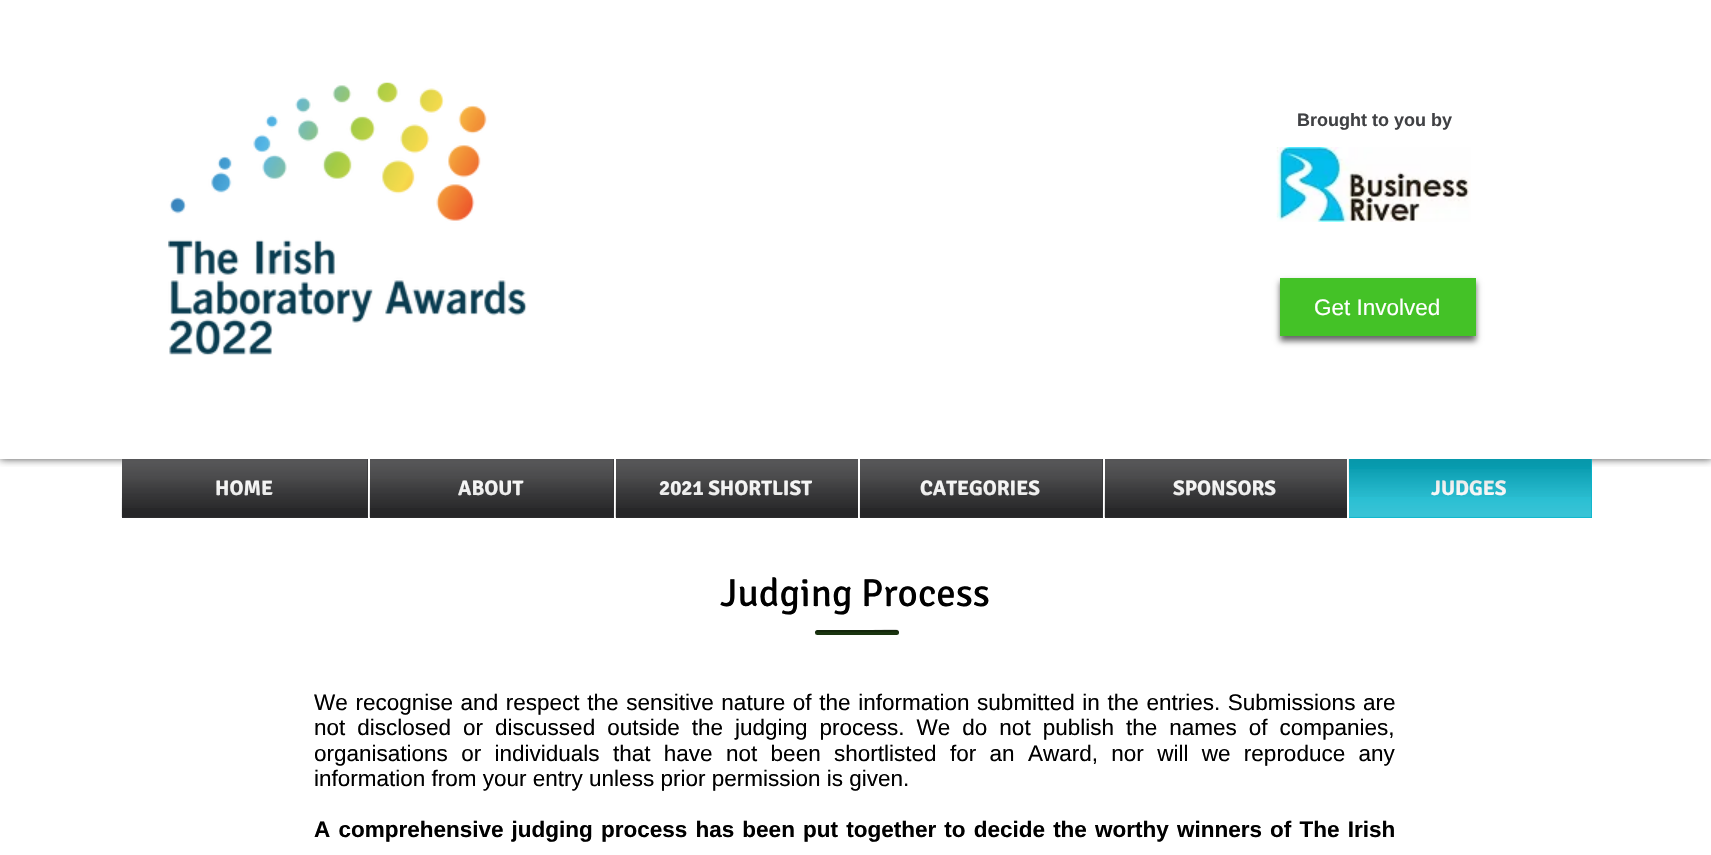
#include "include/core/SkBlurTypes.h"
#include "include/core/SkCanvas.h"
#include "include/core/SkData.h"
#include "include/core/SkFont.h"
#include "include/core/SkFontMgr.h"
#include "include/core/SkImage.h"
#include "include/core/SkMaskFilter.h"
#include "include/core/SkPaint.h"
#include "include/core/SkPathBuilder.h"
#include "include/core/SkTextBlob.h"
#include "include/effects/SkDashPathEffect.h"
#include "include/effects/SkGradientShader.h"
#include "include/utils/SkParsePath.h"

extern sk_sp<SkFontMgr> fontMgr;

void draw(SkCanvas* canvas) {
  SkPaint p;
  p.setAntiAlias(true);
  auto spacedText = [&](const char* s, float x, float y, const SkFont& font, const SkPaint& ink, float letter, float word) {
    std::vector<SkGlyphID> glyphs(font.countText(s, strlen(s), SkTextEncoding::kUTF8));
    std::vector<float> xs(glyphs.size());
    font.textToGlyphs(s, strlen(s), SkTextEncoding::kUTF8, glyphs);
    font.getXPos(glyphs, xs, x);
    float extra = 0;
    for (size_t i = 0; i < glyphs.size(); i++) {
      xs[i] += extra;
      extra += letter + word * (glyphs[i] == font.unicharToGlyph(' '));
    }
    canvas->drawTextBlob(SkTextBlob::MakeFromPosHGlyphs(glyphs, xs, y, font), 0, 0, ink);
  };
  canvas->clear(SK_ColorWHITE);
  canvas->save();
  canvas->clipRect(SkRect::MakeLTRB(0, 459, 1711, 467));
  p.setColor(SkColorSetARGB(179, 0, 0, 0));
  p.setMaskFilter(SkMaskFilter::MakeBlur(kNormal_SkBlurStyle, 4));
  canvas->drawRect(SkRect::MakeLTRB(0, 0, 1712, 459), p);
  p.setMaskFilter(nullptr);
  canvas->restore();
  canvas->drawImageRect(SkImages::DeferredFromEncodedData(SkData::MakeFromFileName("images/1.png")), SkRect::MakeLTRB(168, 82, 527, 355), SkSamplingOptions());
  canvas->drawImageRect(SkImages::DeferredFromEncodedData(SkData::MakeFromFileName("images/2.png")), SkRect::MakeLTRB(1276, 147, 1471, 222), SkSamplingOptions());
  p.setColor(SkColorSetARGB(153, 0, 0, 0));
  p.setMaskFilter(SkMaskFilter::MakeBlur(kNormal_SkBlurStyle, 3));
  canvas->drawRect(SkRect::MakeLTRB(1280, 282, 1476, 341), p);
  p.setMaskFilter(nullptr);
  p.setColor(SkColorSetRGB(68, 194, 39));
  canvas->drawRect(SkRect::MakeLTRB(1280, 278, 1476, 336), p);
  canvas->drawImageRect(SkImages::DeferredFromEncodedData(SkData::MakeFromFileName("images/3.png")), SkRect::MakeLTRB(121, 459, 122, 500), SkSamplingOptions());
  canvas->drawImageRect(SkImages::DeferredFromEncodedData(SkData::MakeFromFileName("images/4.png")), SkRect::MakeLTRB(121, 498, 122, 517), SkSamplingOptions());
  p.setColor(SkColorSetRGB(45, 45, 47));
  canvas->drawRect(SkRect::MakeLTRB(122, 459, 368, 518), p);
  canvas->drawRect(SkRect::MakeLTRB(370, 459, 614, 518), p);
  p.setColor(SK_ColorWHITE);
  canvas->drawRect(SkRect::MakeLTRB(368, 459, 370, 468), p);
  p.setColor(SkColorSetRGB(45, 45, 47));
  canvas->drawRect(SkRect::MakeLTRB(616, 459, 858, 518), p);
  p.setColor(SK_ColorWHITE);
  canvas->drawRect(SkRect::MakeLTRB(614, 459, 616, 468), p);
  p.setColor(SkColorSetRGB(45, 45, 47));
  canvas->drawRect(SkRect::MakeLTRB(860, 459, 1103, 518), p);
  p.setColor(SK_ColorWHITE);
  canvas->drawRect(SkRect::MakeLTRB(858, 459, 860, 468), p);
  p.setColor(SkColorSetRGB(45, 45, 47));
  canvas->drawRect(SkRect::MakeLTRB(1105, 459, 1347, 518), p);
  p.setColor(SK_ColorWHITE);
  canvas->drawRect(SkRect::MakeLTRB(1103, 459, 1105, 468), p);
  p.setColor(SkColorSetRGB(8, 181, 204));
  canvas->drawRect(SkRect::MakeLTRB(1349, 459, 1592, 518), p);
  p.setColor(SK_ColorWHITE);
  canvas->drawRect(SkRect::MakeLTRB(1347, 459, 1349, 468), p);
  p.setColor(SkColorSetRGB(26, 52, 15));
  canvas->drawRoundRect(SkRect::MakeLTRB(815, 630, 899, 635), 2.5f, 2.5f, p);
  p.setColor(SkColorSetARGB(64, 0, 0, 0));
  canvas->drawPath(SkPathBuilder().moveTo(817, 632).lineTo(890, 632).cubicTo(890, 632, 899, 630, 899, 634).cubicTo(899, 633, 899, 631, 898, 630).cubicTo(896, 629, 873, 630, 870, 630).lineTo(817, 630).cubicTo(815, 631, 815, 632, 815, 633).close().detach(), p);
  SkFont font1(fontMgr->matchFamilyStyle("Liberation Sans", SkFontStyle::Bold()), 18);
  font1.setSubpixel(true);
  p.setColor(SkColorSetRGB(64, 65, 68));
  canvas->drawString("Brought to you by", 1297, 126, font1, p);
  SkFont font2(fontMgr->matchFamilyStyle("Liberation Sans", SkFontStyle::Normal()), 22.5f);
  font2.setSubpixel(true);
  p.setColor(SK_ColorWHITE);
  canvas->drawString("Get Involved", 1314, 315, font2, p);
  SkFont font3(fontMgr->matchFamilyStyle("Signika", SkFontStyle::Bold()), 21);
  font3.setSubpixel(true);
  canvas->drawString("HOME", 215, 495, font3, p);
  canvas->drawImageRect(SkImages::DeferredFromEncodedData(SkData::MakeFromFileName("images/5.png")), SkRect::MakeLTRB(122, 459, 368, 508), SkSamplingOptions());
  canvas->drawImageRect(SkImages::DeferredFromEncodedData(SkData::MakeFromFileName("images/6.png")), SkRect::MakeLTRB(121, 480, 367, 517), SkSamplingOptions());
  canvas->drawString("ABOUT", 458, 495, font3, p);
  canvas->drawImageRect(SkImages::DeferredFromEncodedData(SkData::MakeFromFileName("images/7.png")), SkRect::MakeLTRB(370, 459, 614, 508), SkSamplingOptions());
  canvas->drawImageRect(SkImages::DeferredFromEncodedData(SkData::MakeFromFileName("images/8.png")), SkRect::MakeLTRB(369, 479, 613, 518), SkSamplingOptions());
  canvas->drawString("2021 SHORTLIST", 659, 495, font3, p);
  canvas->drawImageRect(SkImages::DeferredFromEncodedData(SkData::MakeFromFileName("images/9.png")), SkRect::MakeLTRB(616, 459, 858, 508), SkSamplingOptions());
  canvas->drawImageRect(SkImages::DeferredFromEncodedData(SkData::MakeFromFileName("images/10.png")), SkRect::MakeLTRB(615, 479, 858, 518), SkSamplingOptions());
  canvas->drawString("CATEGORIES", 920, 495, font3, p);
  canvas->drawImageRect(SkImages::DeferredFromEncodedData(SkData::MakeFromFileName("images/11.png")), SkRect::MakeLTRB(860, 459, 1103, 508), SkSamplingOptions());
  canvas->drawImageRect(SkImages::DeferredFromEncodedData(SkData::MakeFromFileName("images/12.png")), SkRect::MakeLTRB(859, 480, 1102, 518), SkSamplingOptions());
  canvas->drawString("SPONSORS", 1173, 495, font3, p);
  canvas->drawImageRect(SkImages::DeferredFromEncodedData(SkData::MakeFromFileName("images/13.png")), SkRect::MakeLTRB(1105, 459, 1347, 508), SkSamplingOptions());
  canvas->drawImageRect(SkImages::DeferredFromEncodedData(SkData::MakeFromFileName("images/14.png")), SkRect::MakeLTRB(1104, 479, 1347, 518), SkSamplingOptions());
  canvas->drawString("JUDGES", 1431, 495, font3, p);
  canvas->drawImageRect(SkImages::DeferredFromEncodedData(SkData::MakeFromFileName("images/15.png")), SkRect::MakeLTRB(1348, 459, 1592, 497), SkSamplingOptions());
  canvas->drawImageRect(SkImages::DeferredFromEncodedData(SkData::MakeFromFileName("images/16.png")), SkRect::MakeLTRB(1349, 469, 1592, 518), SkSamplingOptions());
  SkFont font4(fontMgr->matchFamilyStyle("Signika", SkFontStyle::Normal()), 39);
  font4.setSubpixel(true);
  p.setColor(SK_ColorBLACK);
  canvas->drawString("Judging Process", 720, 606, font4, p);
  spacedText("We recognise and respect the sensitive nature of the information submitted in the entries. Submissions are", 314, 710, font2, p, 0, 1.4f);
  spacedText("not disclosed or discussed outside the judging process. We do not publish the names of companies,", 314, 735, font2, p, 0, 5.75f);
  spacedText("organisations or individuals that have not been shortlisted for an Award, nor will we reproduce any", 314, 761, font2, p, 0, 7.1f);
  canvas->drawString("information from your entry unless prior permission is given.", 314, 786, font2, p);
  SkFont font5(fontMgr->matchFamilyStyle("Liberation Sans", SkFontStyle::Bold()), 22.5f);
  font5.setSubpixel(true);
  spacedText("A comprehensive judging process has been put together to decide the worthy winners of The Irish", 314, 837, font5, p, 0, 1.9f);
}
